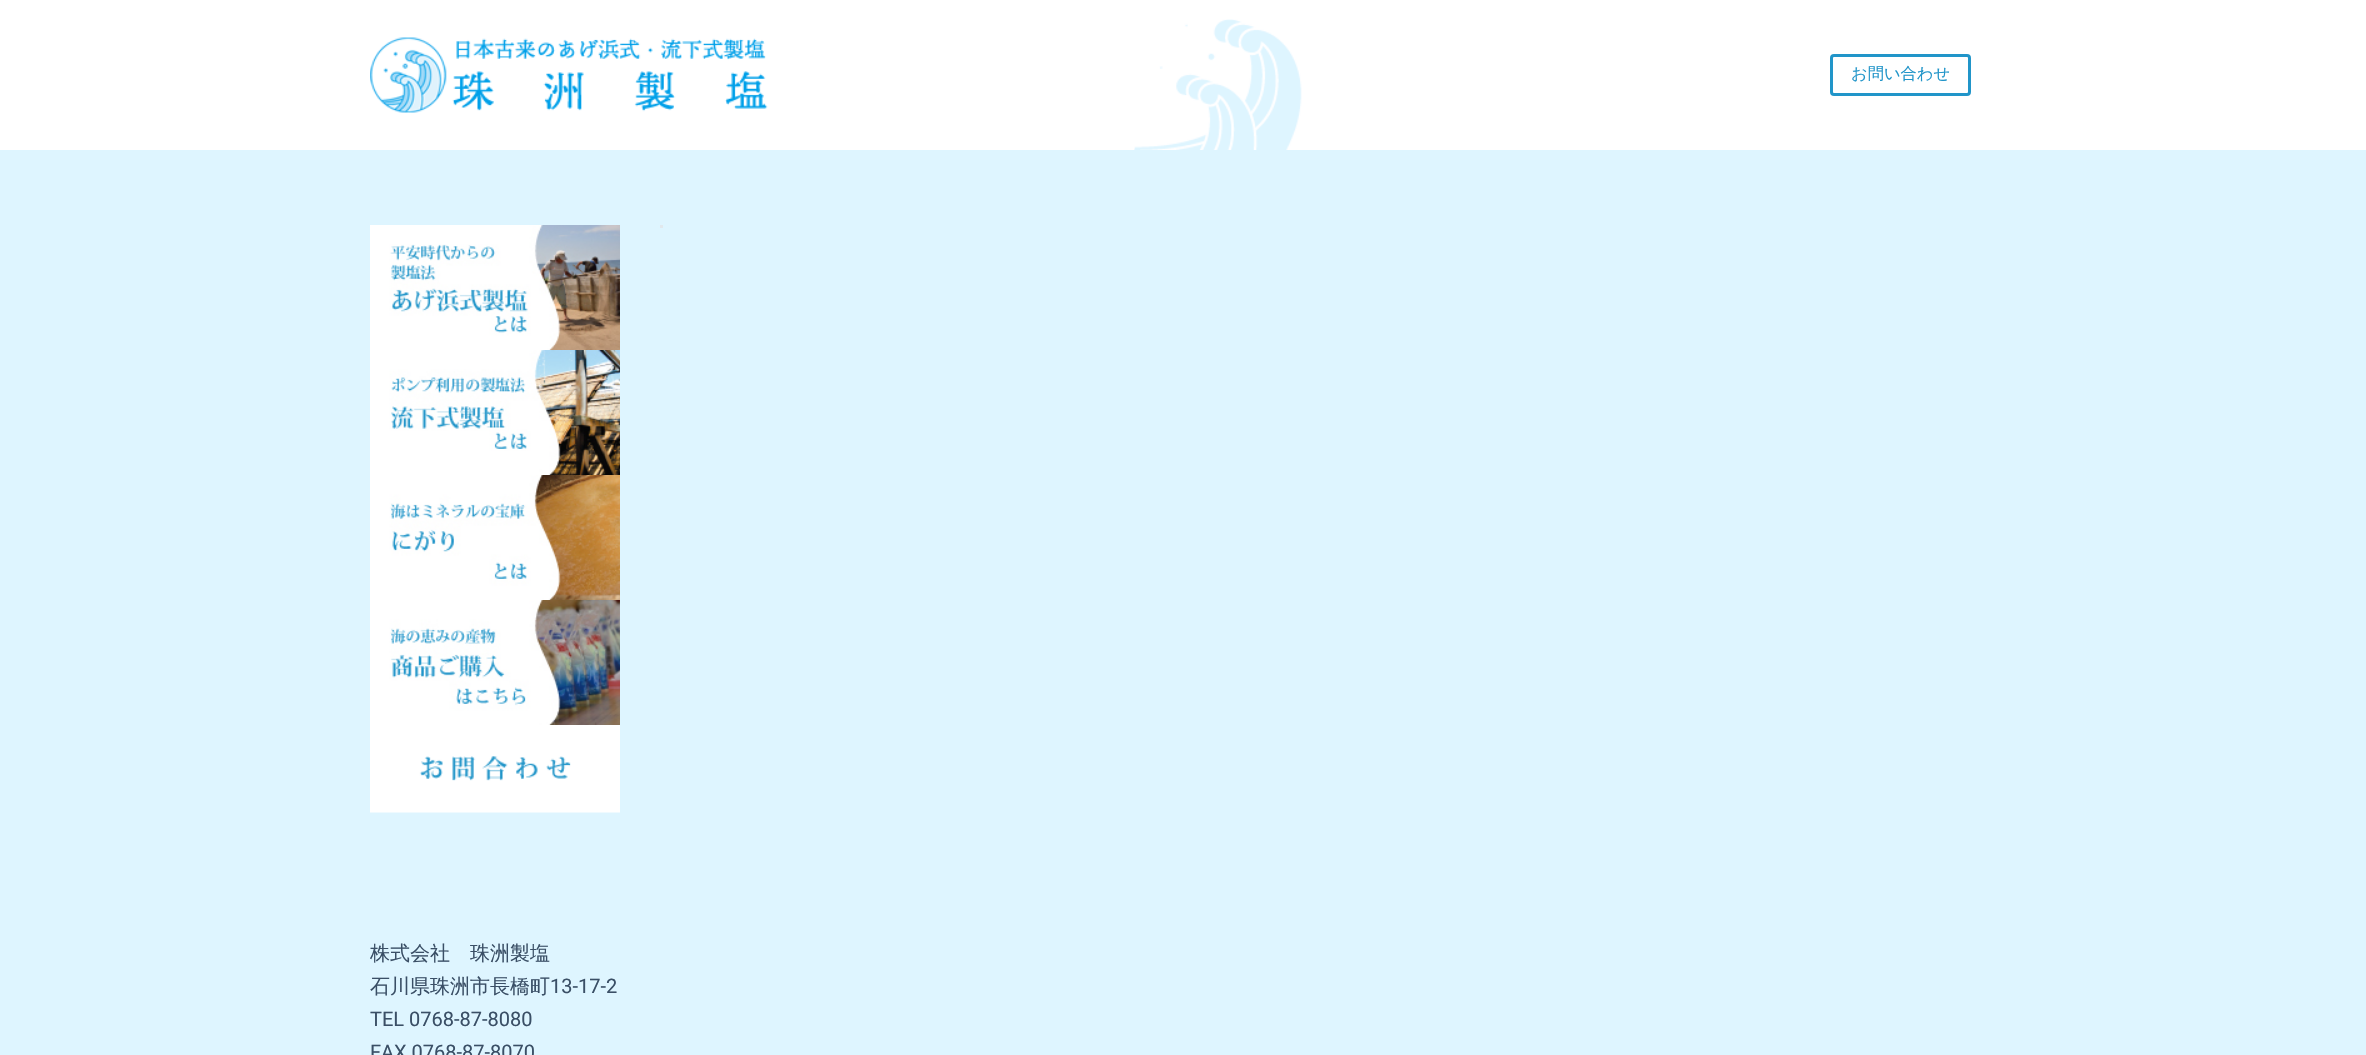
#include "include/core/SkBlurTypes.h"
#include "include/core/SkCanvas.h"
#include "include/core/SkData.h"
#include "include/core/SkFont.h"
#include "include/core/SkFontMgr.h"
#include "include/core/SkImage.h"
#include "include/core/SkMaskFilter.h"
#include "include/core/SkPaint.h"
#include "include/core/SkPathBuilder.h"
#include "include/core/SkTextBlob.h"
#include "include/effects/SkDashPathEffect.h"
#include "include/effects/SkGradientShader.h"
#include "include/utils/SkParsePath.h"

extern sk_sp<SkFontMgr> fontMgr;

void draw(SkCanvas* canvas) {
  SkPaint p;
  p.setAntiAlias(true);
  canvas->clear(SkColorSetRGB(222, 245, 255));
  p.setColor(SK_ColorWHITE);
  canvas->drawRect(SkRect::MakeLTRB(0, 0, 2366, 150), p);
  canvas->drawImageRect(SkImages::DeferredFromEncodedData(SkData::MakeFromFileName("images/1.png")), SkRect::MakeLTRB(1134, 19, 1302, 150), SkSamplingOptions());
  canvas->drawImageRect(SkImages::DeferredFromEncodedData(SkData::MakeFromFileName("images/2.png")), SkRect::MakeLTRB(370, 37, 768, 113), SkSamplingOptions());
  p.setStyle(SkPaint::kStroke_Style);
  p.setStrokeWidth(3);
  p.setColor(SkColorSetRGB(33, 149, 201));
  canvas->drawRoundRect(SkRect::MakeLTRB(1831.5f, 55.5f, 1969.5f, 94.5f), 2.5f, 2.5f, p);
  canvas->drawImageRect(SkImages::DeferredFromEncodedData(SkData::MakeFromFileName("images/3.png")), SkRect::MakeLTRB(370, 225, 620, 350), SkSamplingOptions());
  p.setStyle(SkPaint::kFill_Style);
  p.setColor(SkColorSetRGB(225, 232, 237));
  canvas->drawRect(SkRect::MakeLTRB(660, 225, 663, 228), p);
  canvas->drawImageRect(SkImages::DeferredFromEncodedData(SkData::MakeFromFileName("images/4.png")), SkRect::MakeLTRB(370, 350, 620, 475), SkSamplingOptions());
  canvas->drawImageRect(SkImages::DeferredFromEncodedData(SkData::MakeFromFileName("images/5.png")), SkRect::MakeLTRB(370, 475, 620, 600), SkSamplingOptions());
  canvas->drawImageRect(SkImages::DeferredFromEncodedData(SkData::MakeFromFileName("images/6.png")), SkRect::MakeLTRB(370, 600, 620, 725), SkSamplingOptions());
  canvas->drawImageRect(SkImages::DeferredFromEncodedData(SkData::MakeFromFileName("images/7.png")), SkRect::MakeLTRB(370, 725, 620, 813), SkSamplingOptions());
  SkFont font1(fontMgr->matchFamilyStyle("WenQuanYi Zen Hei", SkFontStyle(500, SkFontStyle::kNormal_Width, SkFontStyle::kUpright_Slant)), 16.25f);
  font1.setSubpixel(true);
  p.setColor(SkColorSetRGB(33, 149, 201));
  canvas->drawString("お問い合わせ", 1851, 79, font1, p);
  SkFont font2(fontMgr->matchFamilyStyle("WenQuanYi Zen Hei", SkFontStyle(500, SkFontStyle::kNormal_Width, SkFontStyle::kUpright_Slant)), 20);
  font2.setSubpixel(true);
  p.setColor(SkColorSetRGB(58, 79, 102));
  canvas->drawString("株式会社　珠洲製塩", 370, 960, font2, p);
  canvas->drawString("石川県珠洲市長橋町", 370, 993, font2, p);
  SkFont font3(fontMgr->matchFamilyStyle("Roboto", SkFontStyle::Normal()), 20);
  font3.setSubpixel(true);
  canvas->drawString("13-17-2", 550, 993, font3, p);
  canvas->drawString("TEL 0768-87-8080", 370, 1026, font3, p);
  canvas->drawString("FAX 0768-87-8070", 370, 1059, font3, p);
}
